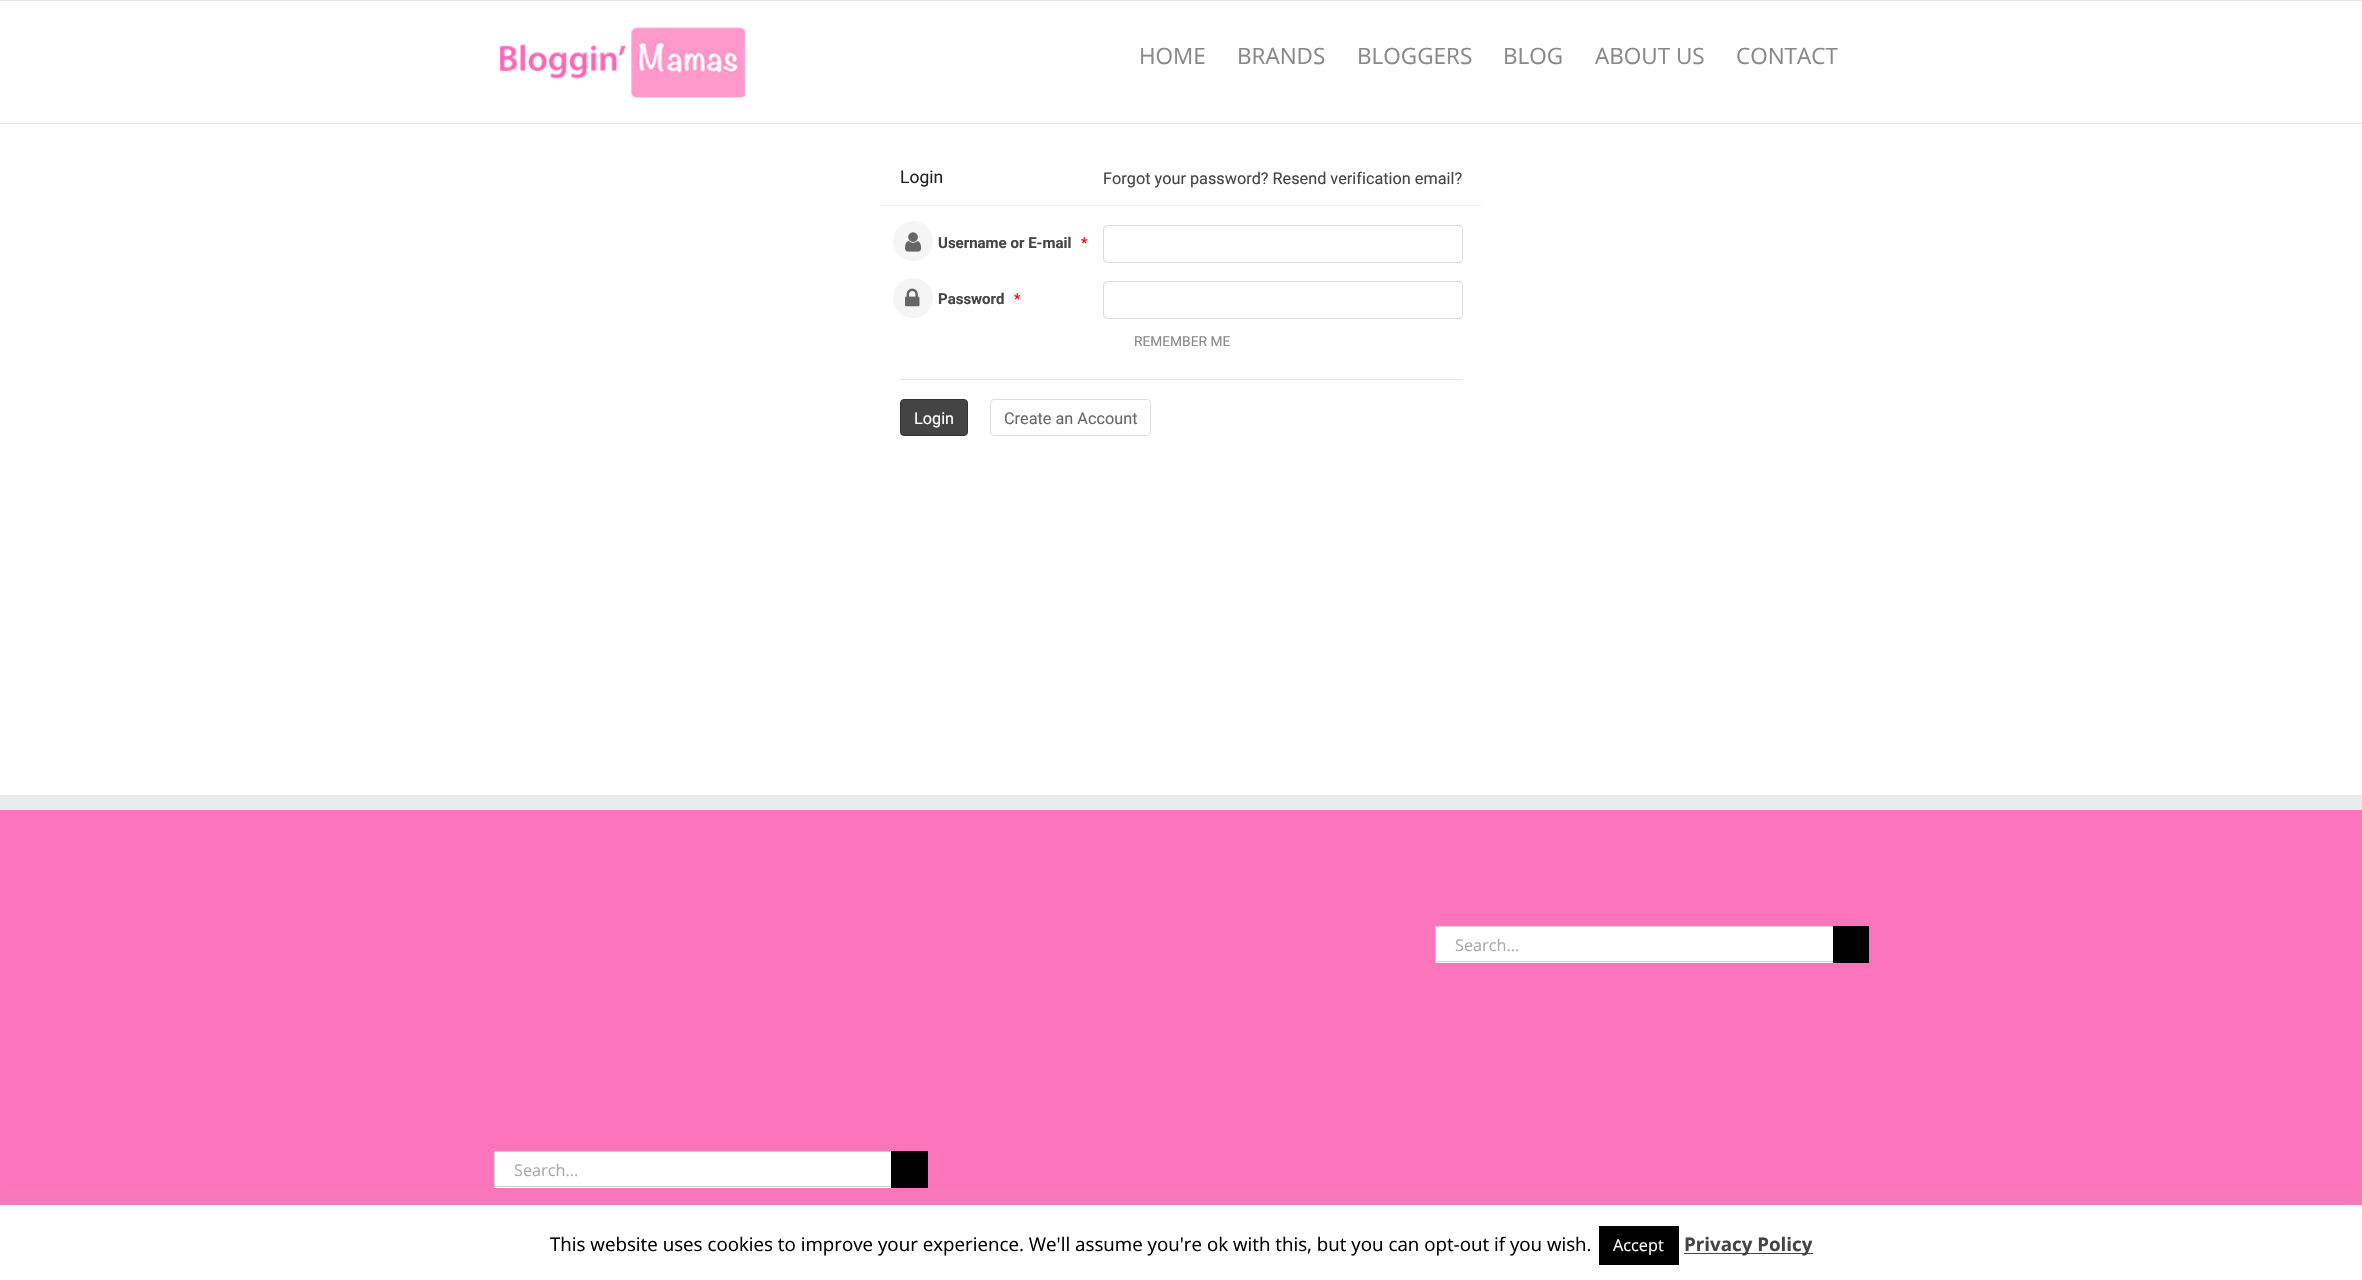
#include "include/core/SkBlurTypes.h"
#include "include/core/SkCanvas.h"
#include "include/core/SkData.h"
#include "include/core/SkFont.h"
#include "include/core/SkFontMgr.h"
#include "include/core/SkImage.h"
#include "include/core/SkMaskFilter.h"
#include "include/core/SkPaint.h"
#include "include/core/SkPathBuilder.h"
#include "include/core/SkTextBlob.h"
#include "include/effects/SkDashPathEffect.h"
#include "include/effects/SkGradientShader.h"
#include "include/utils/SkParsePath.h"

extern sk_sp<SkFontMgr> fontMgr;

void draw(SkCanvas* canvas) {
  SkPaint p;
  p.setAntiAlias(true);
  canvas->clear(SK_ColorWHITE);
  p.setColor(SkColorSetRGB(229, 229, 229));
  canvas->drawRect(SkRect::MakeLTRB(0, 0, 2362, 1), p);
  canvas->drawRect(SkRect::MakeLTRB(0, 123, 2362, 124), p);
  canvas->drawImageRect(SkImages::DeferredFromEncodedData(SkData::MakeFromFileName("images/1.png")), SkRect::MakeLTRB(499, 27, 746, 98), SkSamplingOptions());
  p.setColor(SkColorSetRGB(238, 238, 238));
  canvas->drawRect(SkRect::MakeLTRB(881, 205, 1481, 206), p);
  p.setColor(SkColorSetRGB(245, 245, 245));
  canvas->drawCircle(913, 241, 20, p);
  canvas->drawImageRect(SkImages::DeferredFromEncodedData(SkData::MakeFromFileName("images/2.png")), SkRect::MakeLTRB(905, 232, 922, 252), SkSamplingOptions());
  p.setStyle(SkPaint::kStroke_Style);
  p.setStrokeWidth(1);
  p.setColor(SkColorSetRGB(221, 221, 221));
  canvas->drawRoundRect(SkRect::MakeLTRB(1103.5f, 225.5f, 1462.5f, 262.5f), 3.5f, 3.5f, p);
  p.setStyle(SkPaint::kFill_Style);
  p.setColor(SkColorSetRGB(245, 245, 245));
  canvas->drawCircle(913, 298, 20, p);
  canvas->drawImageRect(SkImages::DeferredFromEncodedData(SkData::MakeFromFileName("images/3.png")), SkRect::MakeLTRB(905, 288, 920, 307), SkSamplingOptions());
  p.setStyle(SkPaint::kStroke_Style);
  p.setColor(SkColorSetRGB(221, 221, 221));
  canvas->drawRoundRect(SkRect::MakeLTRB(1103.5f, 281.5f, 1462.5f, 318.5f), 3.5f, 3.5f, p);
  p.setStyle(SkPaint::kFill_Style);
  p.setColor(SkColorSetRGB(229, 229, 229));
  canvas->drawRect(SkRect::MakeLTRB(900, 379, 1463, 380), p);
  p.setColor(SkColorSetRGB(68, 68, 68));
  canvas->drawRoundRect(SkRect::MakeLTRB(900.5f, 399.5f, 967.5f, 435.5f), 3.5f, 3.5f, p);
  p.setStyle(SkPaint::kStroke_Style);
  p.setColor(SkColorSetRGB(51, 51, 51));
  canvas->drawRoundRect(SkRect::MakeLTRB(900.5f, 399.5f, 967.5f, 435.5f), 3.5f, 3.5f, p);
  p.setColor(SkColorSetRGB(221, 221, 221));
  canvas->drawRoundRect(SkRect::MakeLTRB(990.5f, 399.5f, 1150.5f, 435.5f), 3.5f, 3.5f, p);
  p.setStyle(SkPaint::kFill_Style);
  p.setColor(SkColorSetRGB(252, 117, 188));
  canvas->drawRect(SkRect::MakeLTRB(0, 810, 2362, 1205), p);
  p.setColor(SkColorSetRGB(233, 234, 238));
  canvas->drawRect(SkRect::MakeLTRB(0, 795, 2362, 810), p);
  p.setColor(SK_ColorWHITE);
  canvas->drawRect(SkRect::MakeLTRB(1436, 927, 1833, 963), p);
  p.setColor(SkColorSetRGB(210, 210, 210));
  canvas->drawRect(SkRect::MakeLTRB(1435, 926, 1833, 927), p);
  canvas->drawRect(SkRect::MakeLTRB(1435, 961, 1833, 962), p);
  canvas->drawRect(SkRect::MakeLTRB(1435, 926, 1436, 963), p);
  p.setColor(SK_ColorBLACK);
  canvas->drawRect(SkRect::MakeLTRB(1833, 926, 1869, 963), p);
  p.setColor(SK_ColorWHITE);
  canvas->drawRect(SkRect::MakeLTRB(495, 1152, 891, 1188), p);
  p.setColor(SkColorSetRGB(210, 210, 210));
  canvas->drawRect(SkRect::MakeLTRB(494, 1151, 891, 1152), p);
  canvas->drawRect(SkRect::MakeLTRB(494, 1186, 891, 1187), p);
  canvas->drawRect(SkRect::MakeLTRB(494, 1151, 495, 1188), p);
  p.setColor(SK_ColorBLACK);
  canvas->drawRect(SkRect::MakeLTRB(891, 1151, 928, 1188), p);
  p.setColor(SkColorSetARGB(77, 172, 171, 171));
  p.setMaskFilter(SkMaskFilter::MakeBlur(kNormal_SkBlurStyle, 6));
  canvas->drawRect(SkRect::MakeLTRB(0, 1204, 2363, 1279), p);
  p.setMaskFilter(nullptr);
  p.setColor(SK_ColorWHITE);
  canvas->drawRect(SkRect::MakeLTRB(0, 1205, 2362, 1280), p);
  p.setColor(SK_ColorBLACK);
  canvas->drawRect(SkRect::MakeLTRB(1599, 1226, 1679, 1265), p);
  p.setColor(SkColorSetRGB(68, 68, 68));
  canvas->drawRect(SkRect::MakeLTRB(1684, 1253, 1813, 1254), p);
  SkFont font1(fontMgr->matchFamilyStyle("Open Sans", SkFontStyle::Normal()), 22.5f);
  font1.setSubpixel(true);
  p.setColor(SkColorSetRGB(136, 136, 136));
  canvas->drawString("HOME", 1139, 64, font1, p);
  canvas->drawString("BRANDS", 1237, 64, font1, p);
  canvas->drawString("BLOGGERS", 1357, 64, font1, p);
  canvas->drawString("BLOG", 1503, 64, font1, p);
  canvas->drawString("ABOUT US", 1595, 64, font1, p);
  canvas->drawString("CONTACT", 1736, 64, font1, p);
  SkFont font2(fontMgr->matchFamilyStyle("Roboto", SkFontStyle::Normal()), 17.5f);
  font2.setSubpixel(true);
  p.setColor(SkColorSetRGB(34, 34, 34));
  canvas->drawString("Login", 900, 183, font2, p);
  SkFont font3(fontMgr->matchFamilyStyle("Roboto", SkFontStyle::Normal()), 16.25f);
  font3.setSubpixel(true);
  p.setColor(SkColorSetRGB(68, 68, 68));
  canvas->drawString("Forgot your password? Resend verification email?", 1103, 184, font3, p);
  SkFont font4(fontMgr->matchFamilyStyle("Roboto", SkFontStyle::Bold()), 15);
  font4.setSubpixel(true);
  canvas->drawString("Username or E-mail", 938, 248, font4, p);
  SkFont font5(fontMgr->matchFamilyStyle("Roboto", SkFontStyle::Normal()), 15);
  font5.setSubpixel(true);
  p.setColor(SkColorSetRGB(255, 0, 0));
  canvas->drawString("*", 1081, 248, font5, p);
  p.setColor(SkColorSetRGB(68, 68, 68));
  canvas->drawString("Password", 938, 304, font4, p);
  p.setColor(SkColorSetRGB(255, 0, 0));
  canvas->drawString("*", 1014, 304, font5, p);
  SkFont font6(fontMgr->matchFamilyStyle("Roboto", SkFontStyle::Normal()), 13.75f);
  font6.setSubpixel(true);
  p.setColor(SkColorSetRGB(136, 136, 136));
  canvas->drawString("REMEMBER ME", 1134, 346, font6, p);
  p.setColor(SK_ColorWHITE);
  canvas->drawString("Login", 914, 424, font3, p);
  p.setColor(SkColorSetRGB(102, 102, 102));
  canvas->drawString("Create an Account", 1004, 424, font3, p);
  SkFont font7(fontMgr->matchFamilyStyle("Open Sans", SkFontStyle::Normal()), 16.25f);
  font7.setSubpixel(true);
  p.setColor(SkColorSetRGB(170, 169, 169));
  canvas->drawString("Search...", 1455, 951, font7, p);
  canvas->drawString("Search...", 514, 1176, font7, p);
  SkFont font8(fontMgr->matchFamilyStyle("Open Sans", SkFontStyle::Normal()), 18.75f);
  font8.setSubpixel(true);
  p.setColor(SK_ColorBLACK);
  canvas->drawString("This website uses cookies to improve your experience. We'll assume you're ok with this, but you can opt-out if you wish.", 550, 1251, font8, p);
  p.setColor(SK_ColorWHITE);
  canvas->drawString("Accept", 1613, 1251, font7, p);
  SkFont font9(fontMgr->matchFamilyStyle("Open Sans", SkFontStyle::Bold()), 18.75f);
  font9.setSubpixel(true);
  p.setColor(SkColorSetRGB(68, 68, 68));
  canvas->drawString("Privacy Policy", 1684, 1251, font9, p);
}
